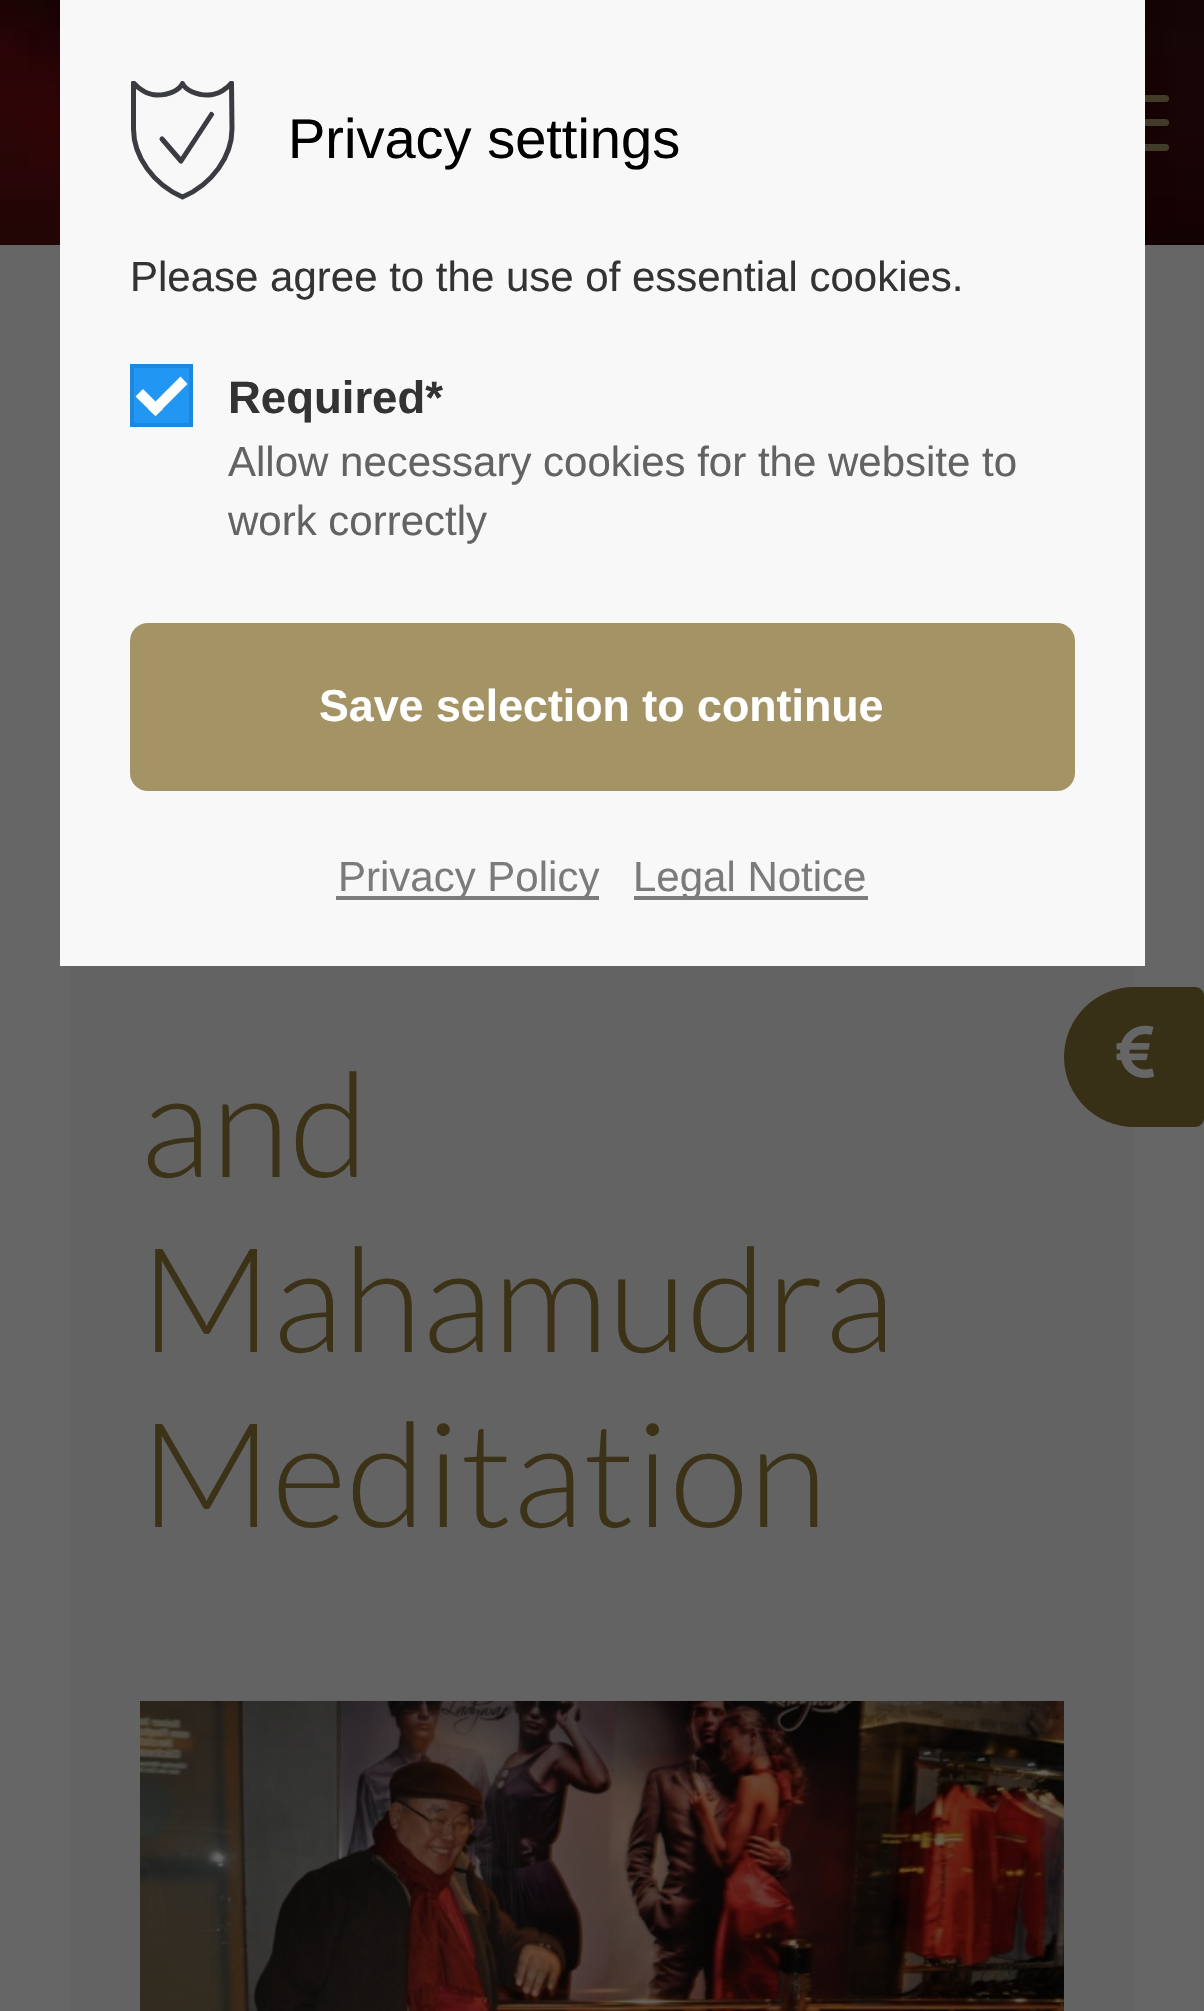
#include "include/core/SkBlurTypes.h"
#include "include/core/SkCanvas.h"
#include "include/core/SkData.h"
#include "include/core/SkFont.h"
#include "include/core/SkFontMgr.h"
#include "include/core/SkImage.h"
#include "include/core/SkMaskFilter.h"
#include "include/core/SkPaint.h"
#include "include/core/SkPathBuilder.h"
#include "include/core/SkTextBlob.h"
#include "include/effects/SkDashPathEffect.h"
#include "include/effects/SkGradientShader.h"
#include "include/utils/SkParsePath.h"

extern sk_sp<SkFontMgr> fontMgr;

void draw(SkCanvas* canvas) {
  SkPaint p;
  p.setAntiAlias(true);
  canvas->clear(SkColorSetRGB(102, 102, 102));
  canvas->drawImageRect(SkImages::DeferredFromEncodedData(SkData::MakeFromFileName("images/1.png")), SkRect::MakeLTRB(0, 0, 1204, 245), SkSamplingOptions());
  p.setColor(SkColorSetRGB(66, 59, 40));
  canvas->drawRoundRect(SkRect::MakeLTRB(1096, 119, 1169, 126), 3.5f, 3.5f, p);
  canvas->drawRoundRect(SkRect::MakeLTRB(1096, 95, 1169, 102), 3.5f, 3.5f, p);
  canvas->drawRoundRect(SkRect::MakeLTRB(1096, 144, 1169, 151), 3.5f, 3.5f, p);
  p.setColor(SkColorSetRGB(248, 248, 248));
  canvas->drawRect(SkRect::MakeLTRB(60, 0, 1145, 966), p);
  canvas->save();
  canvas->clipRect(SkRect::MakeLTRB(130, 81, 235, 200));
  p.setStyle(SkPaint::kStroke_Style);
  p.setStrokeWidth(5);
  p.setStrokeCap(SkPaint::kRound_Cap);
  p.setStrokeJoin(SkPaint::kRound_Join);
  p.setColor(SkColorSetRGB(59, 60, 65));
  canvas->drawPath(SkPathBuilder().moveTo(182.5f, 197).cubicTo(153.5f, 184.5f, 133.5f, 156.5f, 133.5f, 129).lineTo(133.5f, 83).cubicTo(138, 88, 147, 95, 157, 95).cubicTo(169.5f, 95, 179.5f, 90, 182.5f, 83.5f).cubicTo(185.5f, 90, 196, 95, 208, 95).cubicTo(218.5f, 95, 227.5f, 88, 231.5f, 83).lineTo(232, 129).cubicTo(232, 156.5f, 212, 184.5f, 182.5f, 197).close().detach(), p);
  canvas->restore();
  canvas->drawPath(SkPathBuilder().moveTo(162, 139).lineTo(181, 161).lineTo(211.5f, 114.5f).detach(), p);
  p.setStyle(SkPaint::kFill_Style);
  p.setColor(SkColorSetRGB(33, 150, 243));
  canvas->drawRect(SkRect::MakeLTRB(132, 366, 191, 425), p);
  p.setStyle(SkPaint::kStroke_Style);
  p.setStrokeWidth(4);
  p.setStrokeCap(SkPaint::kButt_Cap);
  p.setStrokeJoin(SkPaint::kMiter_Join);
  p.setColor(SkColorSetRGB(30, 135, 219));
  canvas->drawRect(SkRect::MakeLTRB(132, 366, 191, 425), p);
  p.setStyle(SkPaint::kFill_Style);
  p.setColor(SK_ColorWHITE);
  canvas->drawPath(SkPathBuilder().moveTo(180.5f, 376.5f).lineTo(187.5f, 384).lineTo(155.5f, 416).lineTo(148, 409).close().detach(), p);
  canvas->drawPath(SkPathBuilder().moveTo(143, 389).lineTo(163, 409).lineTo(155.5f, 416).lineTo(135.5f, 396.5f).close().detach(), p);
  p.setColor(SkColorSetRGB(164, 147, 100));
  canvas->drawRoundRect(SkRect::MakeLTRB(130, 623, 1075, 791), 18, 18, p);
  p.setColor(SkColorSetRGB(124, 124, 124));
  canvas->drawRect(SkRect::MakeLTRB(336, 896, 599, 900), p);
  canvas->drawRect(SkRect::MakeLTRB(634, 896, 868, 900), p);
  p.setColor(SkColorSetRGB(99, 99, 99));
  canvas->drawRect(SkRect::MakeLTRB(70, 966, 1134, 2011), p);
  p.setColor(SkColorSetRGB(55, 47, 22));
  canvas->drawPath(SkPathBuilder().moveTo(1134, 987).lineTo(1195, 987).cubicTo(1200, 987, 1204, 991, 1204, 996).lineTo(1204, 1118).cubicTo(1204, 1123, 1200, 1127, 1195, 1127).lineTo(1134, 1127).cubicTo(1095.5f, 1127, 1064, 1095.5f, 1064, 1057).cubicTo(1064, 1018.5f, 1095.5f, 987, 1134, 987).close().detach(), p);
  canvas->drawImageRect(SkImages::DeferredFromEncodedData(SkData::MakeFromFileName("images/2.png")), SkRect::MakeLTRB(1116, 1025, 1154, 1078), SkSamplingOptions());
  canvas->drawImageRect(SkImages::DeferredFromEncodedData(SkData::MakeFromFileName("images/3.png")), SkRect::MakeLTRB(140, 1701, 1064, 2011), SkSamplingOptions());
  SkFont font1(fontMgr->matchFamilyStyle("Liberation Sans", SkFontStyle::Normal()), 56);
  font1.setSubpixel(true);
  p.setColor(SK_ColorBLACK);
  canvas->drawString("Privacy settings", 288, 158, font1, p);
  SkFont font2(fontMgr->matchFamilyStyle("Liberation Sans", SkFontStyle::Normal()), 42);
  font2.setSubpixel(true);
  p.setColor(SkColorSetRGB(51, 51, 51));
  canvas->drawString("Please agree to the use of essential cookies.", 130, 291, font2, p);
  SkFont font3(fontMgr->matchFamilyStyle("Liberation Sans", SkFontStyle::Bold()), 45.5f);
  font3.setSubpixel(true);
  canvas->drawString("Required*", 228, 413, font3, p);
  p.setColor(SkColorSetRGB(99, 99, 99));
  canvas->drawString("Allow necessary cookies for the website to", 228, 476, font2, p);
  canvas->drawString("work correctly", 228, 535, font2, p);
  SkFont font4(fontMgr->matchFamilyStyle("Liberation Sans", SkFontStyle::Bold()), 44.75f);
  font4.setSubpixel(true);
  p.setColor(SK_ColorWHITE);
  canvas->drawString("Save selection to continue", 319, 721, font4, p);
  p.setColor(SkColorSetRGB(123, 123, 123));
  canvas->drawString("Privacy Policy", 338, 891, font2, p);
  canvas->drawString("Legal Notice", 633, 891, font2, p);
  SkFont font5(fontMgr->matchFamilyStyle("Lato", SkFontStyle(300, SkFontStyle::kNormal_Width, SkFontStyle::kUpright_Slant)), 145.5f);
  font5.setSubpixel(true);
  p.setColor(SkColorSetRGB(59, 50, 24));
  canvas->drawString("and", 140, 1177, font5, p);
  canvas->drawString("Mahamudra", 140, 1352, font5, p);
  canvas->drawString("Meditation", 140, 1527, font5, p);
}
